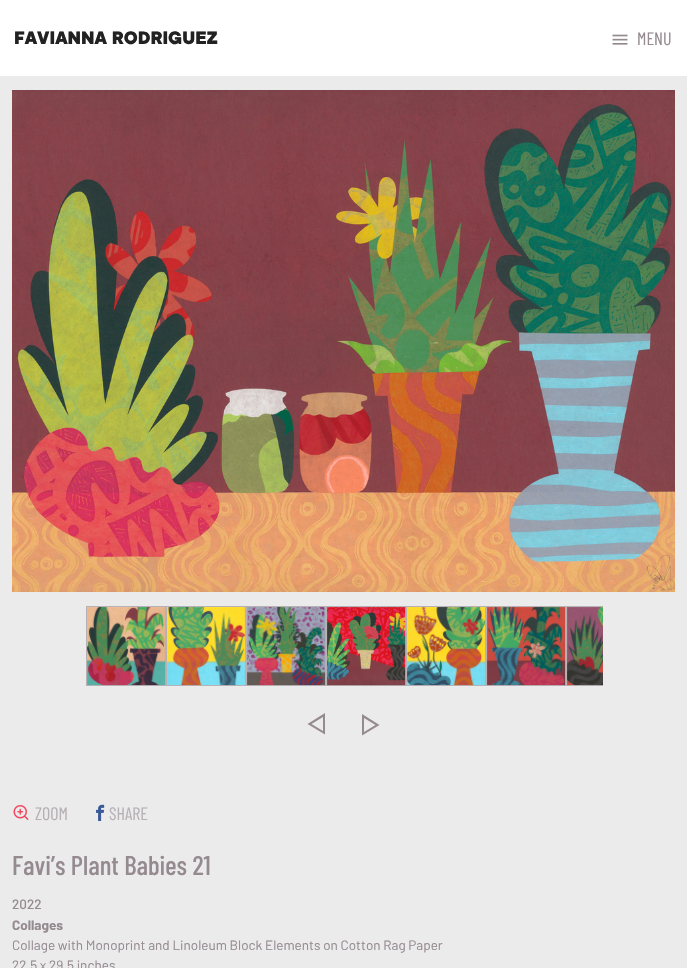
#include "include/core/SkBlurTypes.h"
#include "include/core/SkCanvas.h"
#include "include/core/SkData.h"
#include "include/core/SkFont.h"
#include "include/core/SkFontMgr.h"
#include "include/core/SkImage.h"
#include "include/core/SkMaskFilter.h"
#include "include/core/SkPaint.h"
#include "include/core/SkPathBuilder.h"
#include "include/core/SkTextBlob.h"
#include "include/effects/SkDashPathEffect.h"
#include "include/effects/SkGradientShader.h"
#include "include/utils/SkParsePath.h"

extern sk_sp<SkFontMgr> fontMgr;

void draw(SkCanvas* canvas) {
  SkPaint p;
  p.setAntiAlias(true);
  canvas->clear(SK_ColorWHITE);
  canvas->drawImageRect(SkImages::DeferredFromEncodedData(SkData::MakeFromFileName("images/1.png")), SkRect::MakeLTRB(612, 34, 628, 45), SkSamplingOptions());
  p.setColor(SkColorSetRGB(235, 235, 235));
  canvas->drawRect(SkRect::MakeLTRB(0, 76, 687, 968), p);
  canvas->drawImageRect(SkImages::DeferredFromEncodedData(SkData::MakeFromFileName("images/2.png")), SkRect::MakeLTRB(12, 90, 675, 592), SkSamplingOptions());
  p.setStyle(SkPaint::kStroke_Style);
  p.setStrokeWidth(1);
  p.setColor(SkColorSetRGB(183, 176, 181));
  canvas->drawRect(SkRect::MakeLTRB(86.5f, 606.5f, 165.5f, 685.5f), p);
  canvas->drawImageRect(SkImages::DeferredFromEncodedData(SkData::MakeFromFileName("images/3.png")), SkRect::MakeLTRB(87, 607, 166, 686), SkSamplingOptions());
  canvas->drawRect(SkRect::MakeLTRB(166.5f, 606.5f, 245.5f, 685.5f), p);
  canvas->drawImageRect(SkImages::DeferredFromEncodedData(SkData::MakeFromFileName("images/4.png")), SkRect::MakeLTRB(167, 607, 246, 686), SkSamplingOptions());
  canvas->drawRect(SkRect::MakeLTRB(246.5f, 606.5f, 325.5f, 685.5f), p);
  canvas->drawImageRect(SkImages::DeferredFromEncodedData(SkData::MakeFromFileName("images/5.png")), SkRect::MakeLTRB(247, 607, 326, 686), SkSamplingOptions());
  canvas->drawRect(SkRect::MakeLTRB(326.5f, 606.5f, 405.5f, 685.5f), p);
  canvas->drawImageRect(SkImages::DeferredFromEncodedData(SkData::MakeFromFileName("images/6.png")), SkRect::MakeLTRB(327, 607, 406, 686), SkSamplingOptions());
  canvas->drawRect(SkRect::MakeLTRB(406.5f, 606.5f, 485.5f, 685.5f), p);
  canvas->drawImageRect(SkImages::DeferredFromEncodedData(SkData::MakeFromFileName("images/7.png")), SkRect::MakeLTRB(407, 607, 486, 686), SkSamplingOptions());
  canvas->drawRect(SkRect::MakeLTRB(486.5f, 606.5f, 565.5f, 685.5f), p);
  canvas->drawImageRect(SkImages::DeferredFromEncodedData(SkData::MakeFromFileName("images/8.png")), SkRect::MakeLTRB(487, 607, 566, 686), SkSamplingOptions());
  canvas->save();
  canvas->clipRect(SkRect::MakeLTRB(85, 606, 603, 691));
  canvas->drawRect(SkRect::MakeLTRB(566.5f, 606.5f, 645.5f, 685.5f), p);
  canvas->restore();
  canvas->drawImageRect(SkImages::DeferredFromEncodedData(SkData::MakeFromFileName("images/9.png")), SkRect::MakeLTRB(567, 607, 603, 686), SkSamplingOptions());
  p.setStyle(SkPaint::kFill_Style);
  p.setColor(SkColorSetRGB(148, 138, 144));
  canvas->drawPath(SkPathBuilder().moveTo(307.5f, 724).lineTo(325, 713).lineTo(325, 734.5f).close().moveTo(311.5f, 724).lineTo(323, 731).lineTo(323, 717).close().detach(), p);
  canvas->drawPath(SkPathBuilder().moveTo(379.5f, 725).lineTo(362, 735.5f).lineTo(362, 714).close().moveTo(375.5f, 725).lineTo(364, 718).lineTo(364, 732).close().detach(), p);
  canvas->drawImageRect(SkImages::DeferredFromEncodedData(SkData::MakeFromFileName("images/10.png")), SkRect::MakeLTRB(13, 805, 29, 820), SkSamplingOptions());
  canvas->drawImageRect(SkImages::DeferredFromEncodedData(SkData::MakeFromFileName("images/11.png")), SkRect::MakeLTRB(96, 804, 105, 821), SkSamplingOptions());
  SkFont font1(fontMgr->matchFamilyStyle("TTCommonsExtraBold", SkFontStyle::Normal()), 20);
  font1.setSubpixel(true);
  p.setColor(SkColorSetRGB(34, 34, 34));
  canvas->drawString("FAVIANNA RODRIGUEZ", 14, 44, font1, p);
  SkFont font2(fontMgr->matchFamilyStyle("Barlow Condensed", SkFontStyle::Normal()), 18);
  font2.setSubpixel(true);
  p.setColor(SkColorSetRGB(148, 138, 144));
  canvas->drawString("MENU", 637, 45, font2, p);
  p.setColor(SkColorSetRGB(183, 176, 181));
  canvas->drawString("ZOOM", 35, 820, font2, p);
  canvas->drawString("SHARE", 109, 820, font2, p);
  SkFont font3(fontMgr->matchFamilyStyle("Barlow Condensed", SkFontStyle(500, SkFontStyle::kNormal_Width, SkFontStyle::kUpright_Slant)), 27);
  font3.setSubpixel(true);
  p.setColor(SkColorSetRGB(148, 138, 144));
  canvas->drawString("Favi’s Plant Babies 21", 12, 875, font3, p);
  SkFont font4(fontMgr->matchFamilyStyle("Barlow", SkFontStyle(500, SkFontStyle::kNormal_Width, SkFontStyle::kUpright_Slant)), 13.5f);
  font4.setSubpixel(true);
  canvas->drawString("2022", 12, 909, font4, p);
  SkFont font5(fontMgr->matchFamilyStyle("Barlow", SkFontStyle::Bold()), 13.5f);
  font5.setSubpixel(true);
  canvas->drawString("Collages", 12, 930, font5, p);
  SkFont font6(fontMgr->matchFamilyStyle("Barlow", SkFontStyle::Normal()), 13.5f);
  font6.setSubpixel(true);
  canvas->drawString("Collage with Monoprint and Linoleum Block Elements on Cotton Rag Paper", 12, 950, font6, p);
  canvas->drawString("22.5 x 29.5 inches", 12, 970, font6, p);
}
